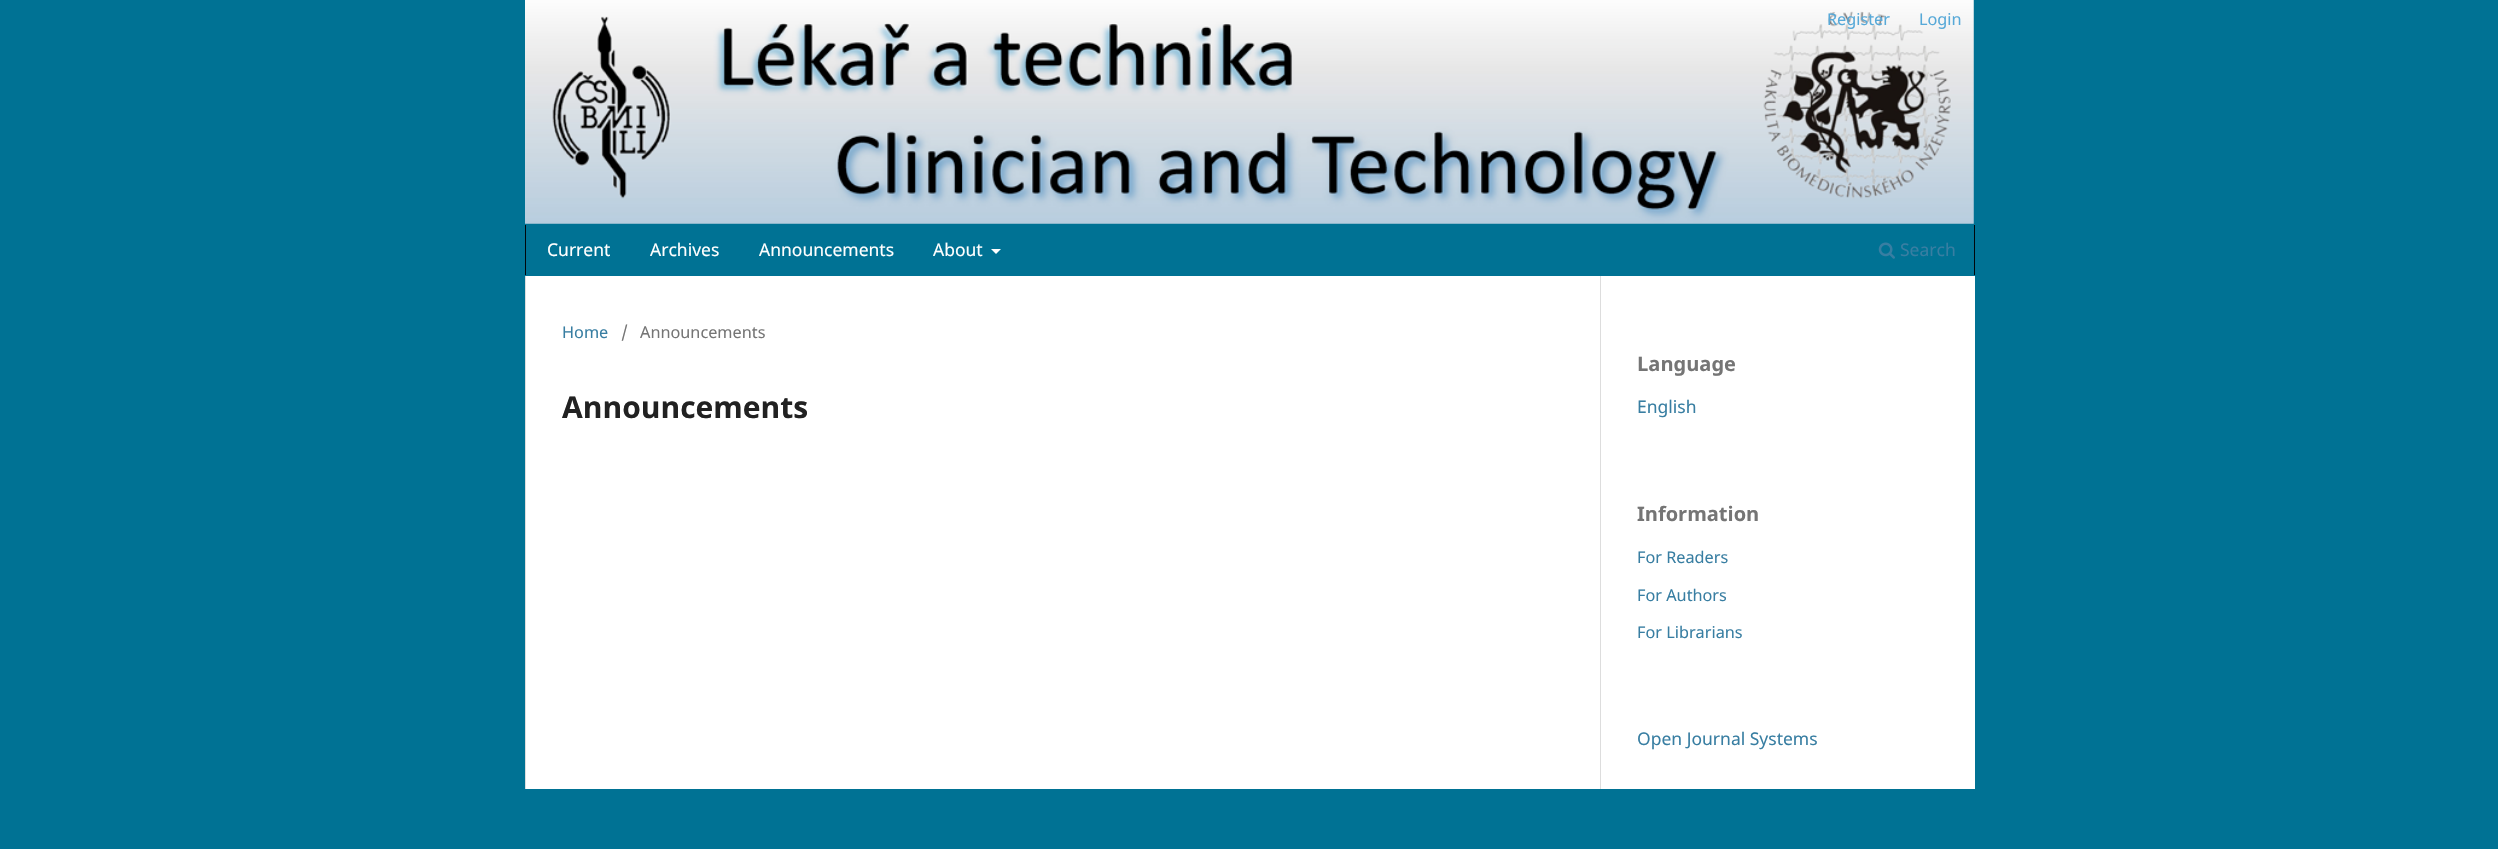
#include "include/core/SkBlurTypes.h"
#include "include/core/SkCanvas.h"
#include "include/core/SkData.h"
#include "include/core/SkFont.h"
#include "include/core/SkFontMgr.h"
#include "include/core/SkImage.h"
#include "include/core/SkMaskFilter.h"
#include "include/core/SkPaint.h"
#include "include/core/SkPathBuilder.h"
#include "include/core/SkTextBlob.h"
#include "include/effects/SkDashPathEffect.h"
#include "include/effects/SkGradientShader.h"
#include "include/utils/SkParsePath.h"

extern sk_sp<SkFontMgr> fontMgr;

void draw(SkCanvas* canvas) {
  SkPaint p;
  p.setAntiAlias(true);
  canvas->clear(SkColorSetRGB(0, 114, 148));
  canvas->drawImageRect(SkImages::DeferredFromEncodedData(SkData::MakeFromFileName("images/1.png")), SkRect::MakeLTRB(525, 0, 1974, 224), SkSamplingOptions());
  p.setColor(SkColorSetRGB(0, 7, 12));
  canvas->drawRect(SkRect::MakeLTRB(525, 225, 1975, 275), p);
  p.setColor(SkColorSetRGB(0, 114, 148));
  canvas->drawRect(SkRect::MakeLTRB(526, 225, 1974, 275), p);
  p.setColor(SK_ColorWHITE);
  canvas->drawPath(SkPathBuilder().moveTo(991, 249).lineTo(1001, 249).lineTo(996, 254).close().detach(), p);
  canvas->drawImageRect(SkImages::DeferredFromEncodedData(SkData::MakeFromFileName("images/2.png")), SkRect::MakeLTRB(1878, 242, 1895, 259), SkSamplingOptions());
  canvas->drawRect(SkRect::MakeLTRB(526, 276, 1975, 789), p);
  p.setColor(SkColorSetRGB(221, 221, 221));
  canvas->drawRect(SkRect::MakeLTRB(525, 276, 526, 789), p);
  canvas->drawRect(SkRect::MakeLTRB(1600, 276, 1601, 789), p);
  SkFont font1(fontMgr->matchFamilyStyle("Noto Sans", SkFontStyle::Normal()), 16.25f);
  font1.setSubpixel(true);
  p.setColor(SkColorSetRGB(87, 169, 216));
  canvas->drawString("Register", 1827, 25, font1, p);
  canvas->drawString("Login", 1919, 25, font1, p);
  SkFont font2(fontMgr->matchFamilyStyle("Noto Sans", SkFontStyle::Normal()), 17.5f);
  font2.setSubpixel(true);
  p.setColor(SK_ColorWHITE);
  canvas->drawString("Current", 547, 256, font2, p);
  canvas->drawString("Archives", 650, 256, font2, p);
  canvas->drawString("Announcements", 759, 256, font2, p);
  canvas->drawString("About", 933, 256, font2, p);
  p.setColor(SkColorSetRGB(56, 126, 162));
  canvas->drawString("Search", 1900, 256, font2, p);
  canvas->drawString("Home", 562, 338, font1, p);
  p.setColor(SkColorSetRGB(117, 117, 117));
  canvas->drawString("/", 621, 338, font1, p);
  canvas->drawString("Announcements", 640, 338, font1, p);
  SkFont font3(fontMgr->matchFamilyStyle("Noto Sans", SkFontStyle::Bold()), 30);
  font3.setSubpixel(true);
  p.setColor(SkColorSetRGB(33, 33, 33));
  canvas->drawString("Announcements", 562, 418, font3, p);
  SkFont font4(fontMgr->matchFamilyStyle("Noto Sans", SkFontStyle::Bold()), 20);
  font4.setSubpixel(true);
  p.setColor(SkColorSetRGB(117, 117, 117));
  canvas->drawString("Language", 1637, 371, font4, p);
  p.setColor(SkColorSetRGB(56, 126, 162));
  canvas->drawString("English", 1637, 413, font2, p);
  p.setColor(SkColorSetRGB(117, 117, 117));
  canvas->drawString("Information", 1637, 521, font4, p);
  p.setColor(SkColorSetRGB(56, 126, 162));
  canvas->drawString("For Readers", 1637, 563, font1, p);
  canvas->drawString("For Authors", 1637, 601, font1, p);
  canvas->drawString("For Librarians", 1637, 638, font1, p);
  canvas->drawString("Open Journal Systems", 1637, 745, font2, p);
}
